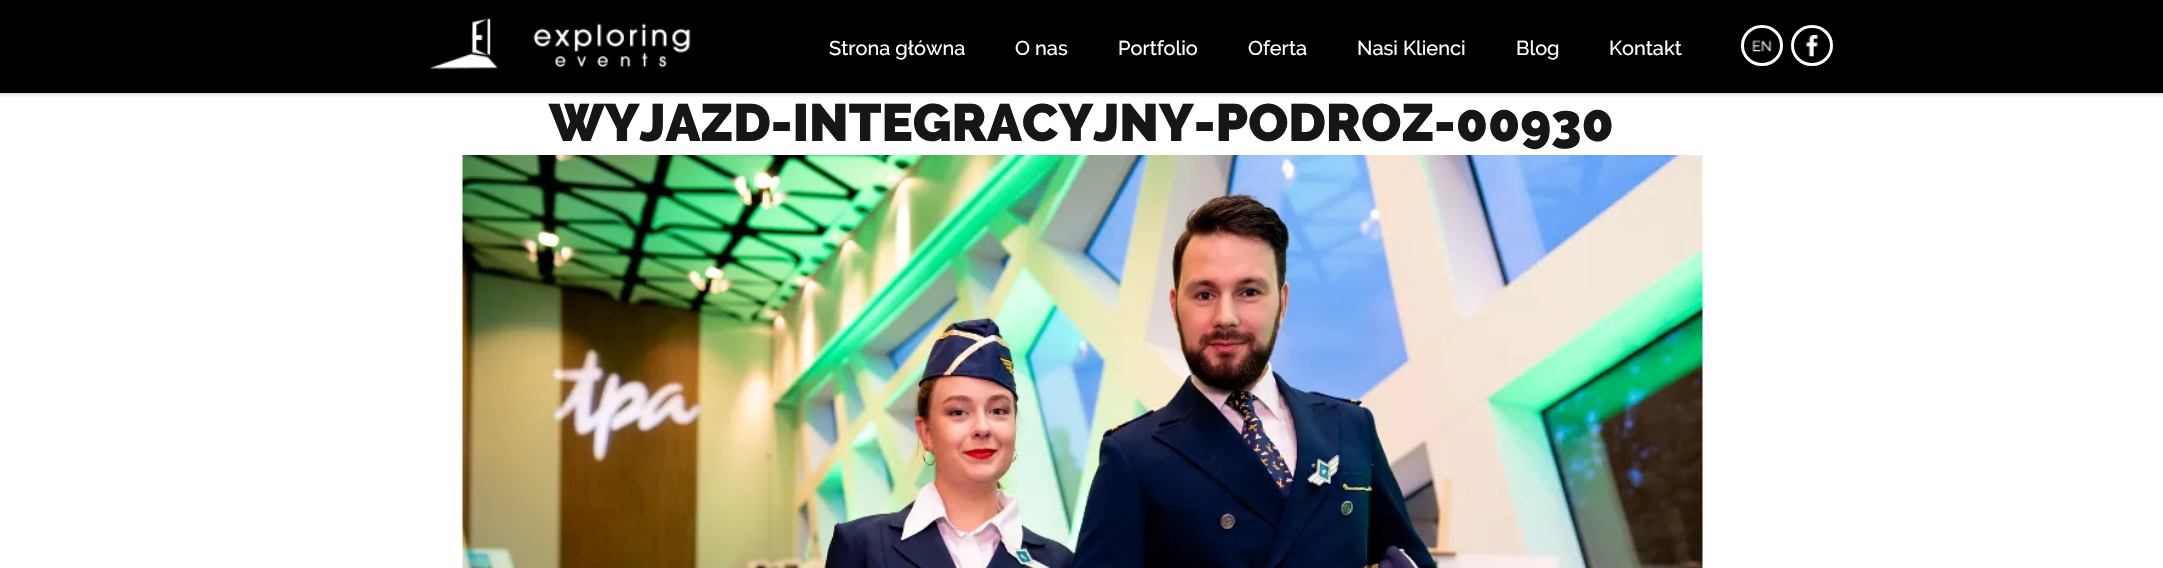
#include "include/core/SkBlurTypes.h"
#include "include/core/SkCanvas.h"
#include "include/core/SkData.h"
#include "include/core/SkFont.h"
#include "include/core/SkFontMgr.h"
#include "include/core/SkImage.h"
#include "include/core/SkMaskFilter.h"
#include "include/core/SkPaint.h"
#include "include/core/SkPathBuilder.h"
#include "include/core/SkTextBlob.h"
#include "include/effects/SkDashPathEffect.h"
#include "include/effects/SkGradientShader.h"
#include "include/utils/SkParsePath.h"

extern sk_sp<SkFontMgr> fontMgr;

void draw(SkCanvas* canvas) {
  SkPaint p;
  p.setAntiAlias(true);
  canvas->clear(SK_ColorWHITE);
  p.setColor(SK_ColorBLACK);
  canvas->drawRect(SkRect::MakeLTRB(0, 0, 2163, 93), p);
  canvas->drawImageRect(SkImages::DeferredFromEncodedData(SkData::MakeFromFileName("images/1.png")), SkRect::MakeLTRB(430, 18, 691, 69), SkSamplingOptions());
  canvas->drawImageRect(SkImages::DeferredFromEncodedData(SkData::MakeFromFileName("images/2.png")), SkRect::MakeLTRB(1752, 40, 1772, 52), SkSamplingOptions());
  p.setStyle(SkPaint::kStroke_Style);
  p.setStrokeWidth(3);
  p.setColor(SK_ColorWHITE);
  canvas->drawRoundRect(SkRect::MakeLTRB(1742.5f, 26.5f, 1781.5f, 64.5f), 19, 19, p);
  canvas->drawImageRect(SkImages::DeferredFromEncodedData(SkData::MakeFromFileName("images/3.png")), SkRect::MakeLTRB(1806, 35, 1818, 57), SkSamplingOptions());
  canvas->drawRoundRect(SkRect::MakeLTRB(1792.5f, 26.5f, 1831.5f, 64.5f), 19, 19, p);
  canvas->drawImageRect(SkImages::DeferredFromEncodedData(SkData::MakeFromFileName("images/4.png")), SkRect::MakeLTRB(0, 93, 2163, 97), SkSamplingOptions());
  canvas->drawImageRect(SkImages::DeferredFromEncodedData(SkData::MakeFromFileName("images/5.png")), SkRect::MakeLTRB(462, 155, 1703, 568), SkSamplingOptions());
  SkFont font1(fontMgr->matchFamilyStyle("Raleway", SkFontStyle(500, SkFontStyle::kNormal_Width, SkFontStyle::kUpright_Slant)), 20);
  font1.setSubpixel(true);
  p.setStyle(SkPaint::kFill_Style);
  canvas->drawString("Strona główna", 829, 55, font1, p);
  canvas->drawString("O nas", 1015, 55, font1, p);
  canvas->drawString("Portfolio", 1118, 55, font1, p);
  canvas->drawString("Oferta", 1248, 55, font1, p);
  canvas->drawString("Nasi Klienci", 1357, 55, font1, p);
  canvas->drawString("Blog", 1516, 55, font1, p);
  canvas->drawString("Kontakt", 1609, 55, font1, p);
  SkFont font2(fontMgr->matchFamilyStyle("Raleway", SkFontStyle(900, SkFontStyle::kNormal_Width, SkFontStyle::kUpright_Slant)), 52.5f);
  font2.setSubpixel(true);
  p.setColor(SkColorSetRGB(22, 22, 22));
  canvas->drawString("WYJAZD-INTEGRACYJNY-PODROZ-00930", 549, 141, font2, p);
}
